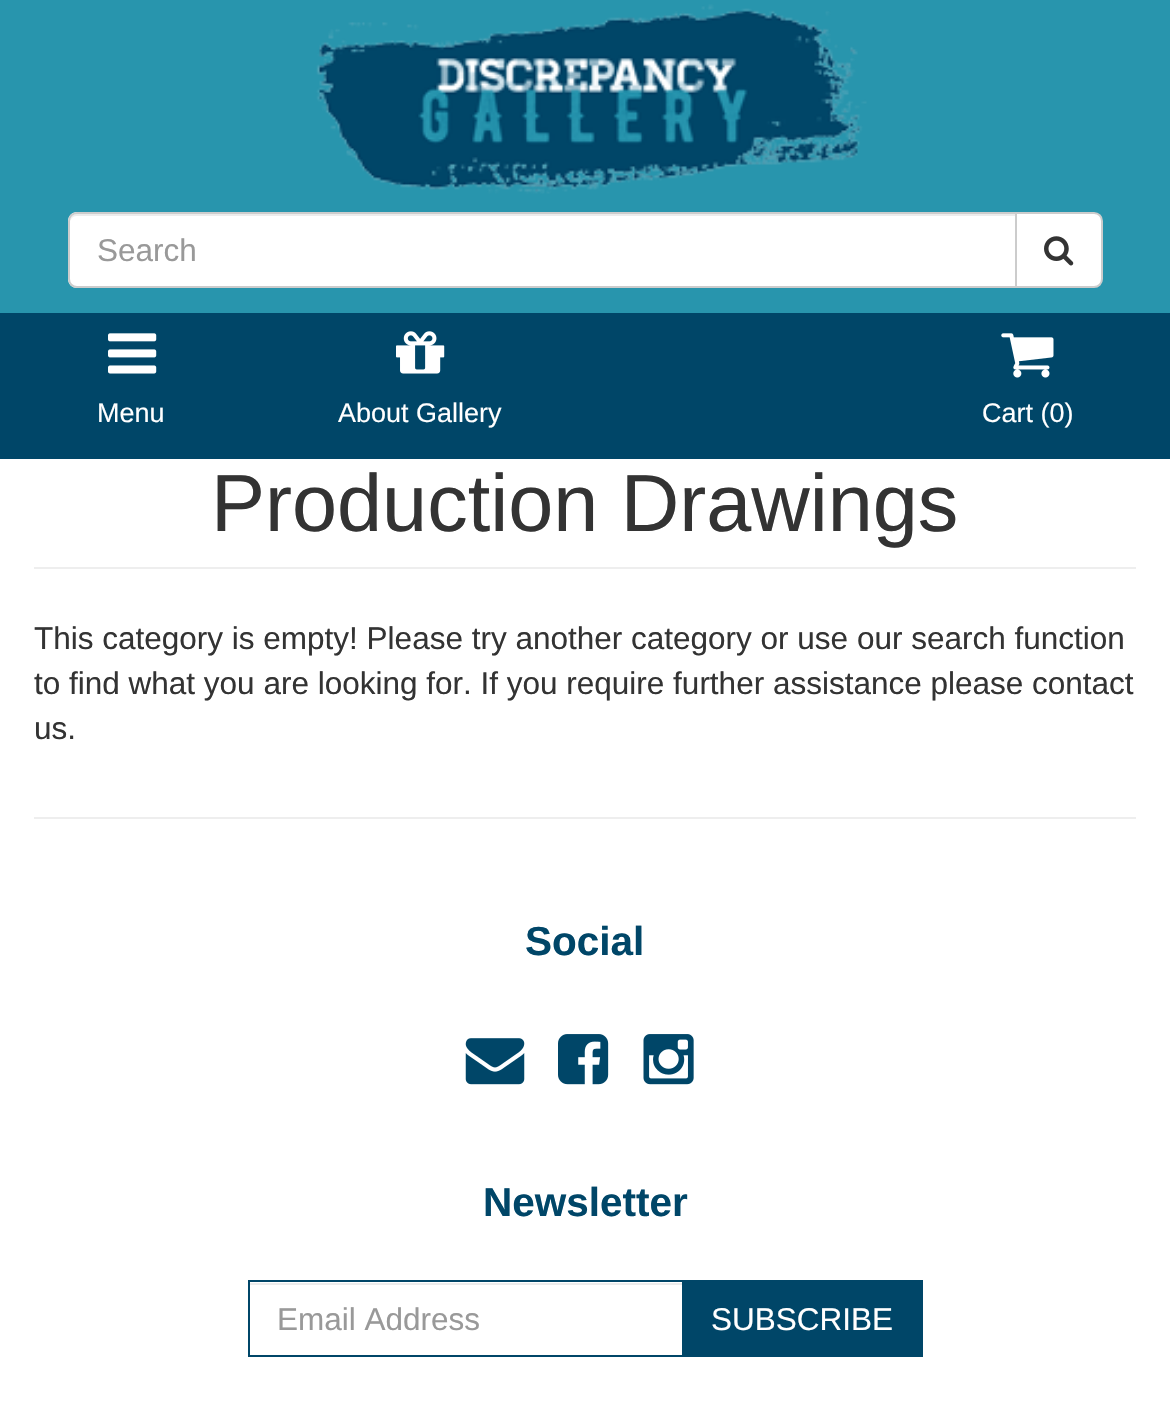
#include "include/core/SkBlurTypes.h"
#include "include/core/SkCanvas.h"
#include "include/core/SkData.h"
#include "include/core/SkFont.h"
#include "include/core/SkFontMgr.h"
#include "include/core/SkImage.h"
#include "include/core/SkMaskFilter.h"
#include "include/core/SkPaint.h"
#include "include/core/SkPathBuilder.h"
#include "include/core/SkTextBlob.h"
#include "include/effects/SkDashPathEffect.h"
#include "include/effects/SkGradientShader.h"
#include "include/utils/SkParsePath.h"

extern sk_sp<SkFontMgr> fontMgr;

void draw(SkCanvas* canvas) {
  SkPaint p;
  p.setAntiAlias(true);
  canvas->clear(SK_ColorWHITE);
  p.setColor(SkColorSetRGB(40, 149, 173));
  canvas->drawRect(SkRect::MakeLTRB(0, 0, 1170, 313), p);
  canvas->drawImageRect(SkImages::DeferredFromEncodedData(SkData::MakeFromFileName("images/1.png")), SkRect::MakeLTRB(316, 4, 867, 194), SkSamplingOptions());
  p.setColor(SK_ColorWHITE);
  canvas->drawPath(SkPathBuilder().moveTo(77, 212).lineTo(1017, 212).lineTo(1017, 288).lineTo(77, 288).cubicTo(72, 288, 68, 284, 68, 279).lineTo(68, 221).cubicTo(68, 216, 72, 212, 77, 212).close().detach(), p);
  p.setColor(SkColorSetRGB(236, 236, 236));
  canvas->drawPath(SkPathBuilder().moveTo(76, 216).lineTo(1015, 216).lineTo(1015, 214).lineTo(77, 214).cubicTo(72, 214, 70, 219, 70, 223).cubicTo(70, 219, 73, 216, 76, 216).close().detach(), p);
  p.setStyle(SkPaint::kStroke_Style);
  p.setStrokeWidth(2);
  p.setColor(SkColorSetRGB(204, 204, 204));
  canvas->drawPath(SkPathBuilder().moveTo(77, 213).lineTo(1016, 213).lineTo(1016, 287).lineTo(77, 287).cubicTo(72.5f, 287, 69, 283.5f, 69, 279).lineTo(69, 221).cubicTo(69, 216.5f, 72.5f, 213, 77, 213).close().detach(), p);
  p.setStyle(SkPaint::kFill_Style);
  p.setColor(SK_ColorWHITE);
  canvas->drawPath(SkPathBuilder().moveTo(1016, 213).lineTo(1094, 213).cubicTo(1098.5f, 213, 1102, 216.5f, 1102, 221).lineTo(1102, 279).cubicTo(1102, 283.5f, 1098.5f, 287, 1094, 287).lineTo(1016, 287).close().detach(), p);
  p.setStyle(SkPaint::kStroke_Style);
  p.setColor(SkColorSetRGB(204, 204, 204));
  canvas->drawPath(SkPathBuilder().moveTo(1016, 213).lineTo(1094, 213).cubicTo(1098.5f, 213, 1102, 216.5f, 1102, 221).lineTo(1102, 279).cubicTo(1102, 283.5f, 1098.5f, 287, 1094, 287).lineTo(1016, 287).close().detach(), p);
  canvas->drawImageRect(SkImages::DeferredFromEncodedData(SkData::MakeFromFileName("images/2.png")), SkRect::MakeLTRB(1044, 236, 1074, 266), SkSamplingOptions());
  p.setStyle(SkPaint::kFill_Style);
  p.setColor(SkColorSetRGB(0, 70, 104));
  canvas->drawRect(SkRect::MakeLTRB(0, 313, 1170, 459), p);
  canvas->drawImageRect(SkImages::DeferredFromEncodedData(SkData::MakeFromFileName("images/3.png")), SkRect::MakeLTRB(108, 333, 157, 374), SkSamplingOptions());
  canvas->drawImageRect(SkImages::DeferredFromEncodedData(SkData::MakeFromFileName("images/4.png")), SkRect::MakeLTRB(396, 331, 445, 374), SkSamplingOptions());
  canvas->drawImageRect(SkImages::DeferredFromEncodedData(SkData::MakeFromFileName("images/5.png")), SkRect::MakeLTRB(1001, 333, 1054, 378), SkSamplingOptions());
  p.setColor(SkColorSetRGB(238, 238, 238));
  canvas->drawRect(SkRect::MakeLTRB(34, 567, 1136, 569), p);
  canvas->drawRect(SkRect::MakeLTRB(34, 817, 1136, 819), p);
  canvas->drawImageRect(SkImages::DeferredFromEncodedData(SkData::MakeFromFileName("images/6.png")), SkRect::MakeLTRB(465, 1038, 525, 1085), SkSamplingOptions());
  canvas->drawImageRect(SkImages::DeferredFromEncodedData(SkData::MakeFromFileName("images/7.png")), SkRect::MakeLTRB(558, 1034, 609, 1085), SkSamplingOptions());
  canvas->drawImageRect(SkImages::DeferredFromEncodedData(SkData::MakeFromFileName("images/8.png")), SkRect::MakeLTRB(643, 1034, 694, 1085), SkSamplingOptions());
  p.setColor(SkColorSetRGB(236, 236, 236));
  canvas->drawRect(SkRect::MakeLTRB(250, 1283, 682, 1285), p);
  p.setStyle(SkPaint::kStroke_Style);
  p.setColor(SkColorSetRGB(0, 70, 104));
  canvas->drawRect(SkRect::MakeLTRB(249, 1281, 683, 1356), p);
  p.setStyle(SkPaint::kFill_Style);
  canvas->drawRect(SkRect::MakeLTRB(684, 1280, 923, 1357), p);
  SkFont font1(fontMgr->matchFamilyStyle("Liberation Sans", SkFontStyle::Normal()), 31.5f);
  font1.setSubpixel(true);
  p.setColor(SkColorSetRGB(153, 153, 153));
  canvas->drawString("Search", 97, 261, font1, p);
  SkFont font2(fontMgr->matchFamilyStyle("Liberation Sans", SkFontStyle::Normal()), 27);
  font2.setSubpixel(true);
  p.setColor(SK_ColorWHITE);
  canvas->drawString("Menu", 97, 422, font2, p);
  canvas->drawString("About Gallery", 338, 422, font2, p);
  canvas->drawString("Cart (0)", 982, 422, font2, p);
  SkFont font3(fontMgr->matchFamilyStyle("Liberation Sans", SkFontStyle::Normal()), 81);
  font3.setSubpixel(true);
  p.setColor(SkColorSetRGB(51, 51, 51));
  canvas->drawString("Production Drawings", 211, 531, font3, p);
  canvas->drawString("This category is empty! Please try another category or use our search function", 34, 649, font1, p);
  canvas->drawString("to find what you are looking for. If you require further assistance please contact", 34, 694, font1, p);
  canvas->drawString("us.", 34, 739, font1, p);
  SkFont font4(fontMgr->matchFamilyStyle("Liberation Sans", SkFontStyle::Bold()), 40.5f);
  font4.setSubpixel(true);
  p.setColor(SkColorSetRGB(0, 70, 104));
  canvas->drawString("Social", 525, 955, font4, p);
  canvas->drawString("Newsletter", 483, 1216, font4, p);
  p.setColor(SkColorSetRGB(153, 153, 153));
  canvas->drawString("Email Address", 277, 1330, font1, p);
  p.setColor(SK_ColorWHITE);
  canvas->drawString("SUBSCRIBE", 711, 1330, font1, p);
}
